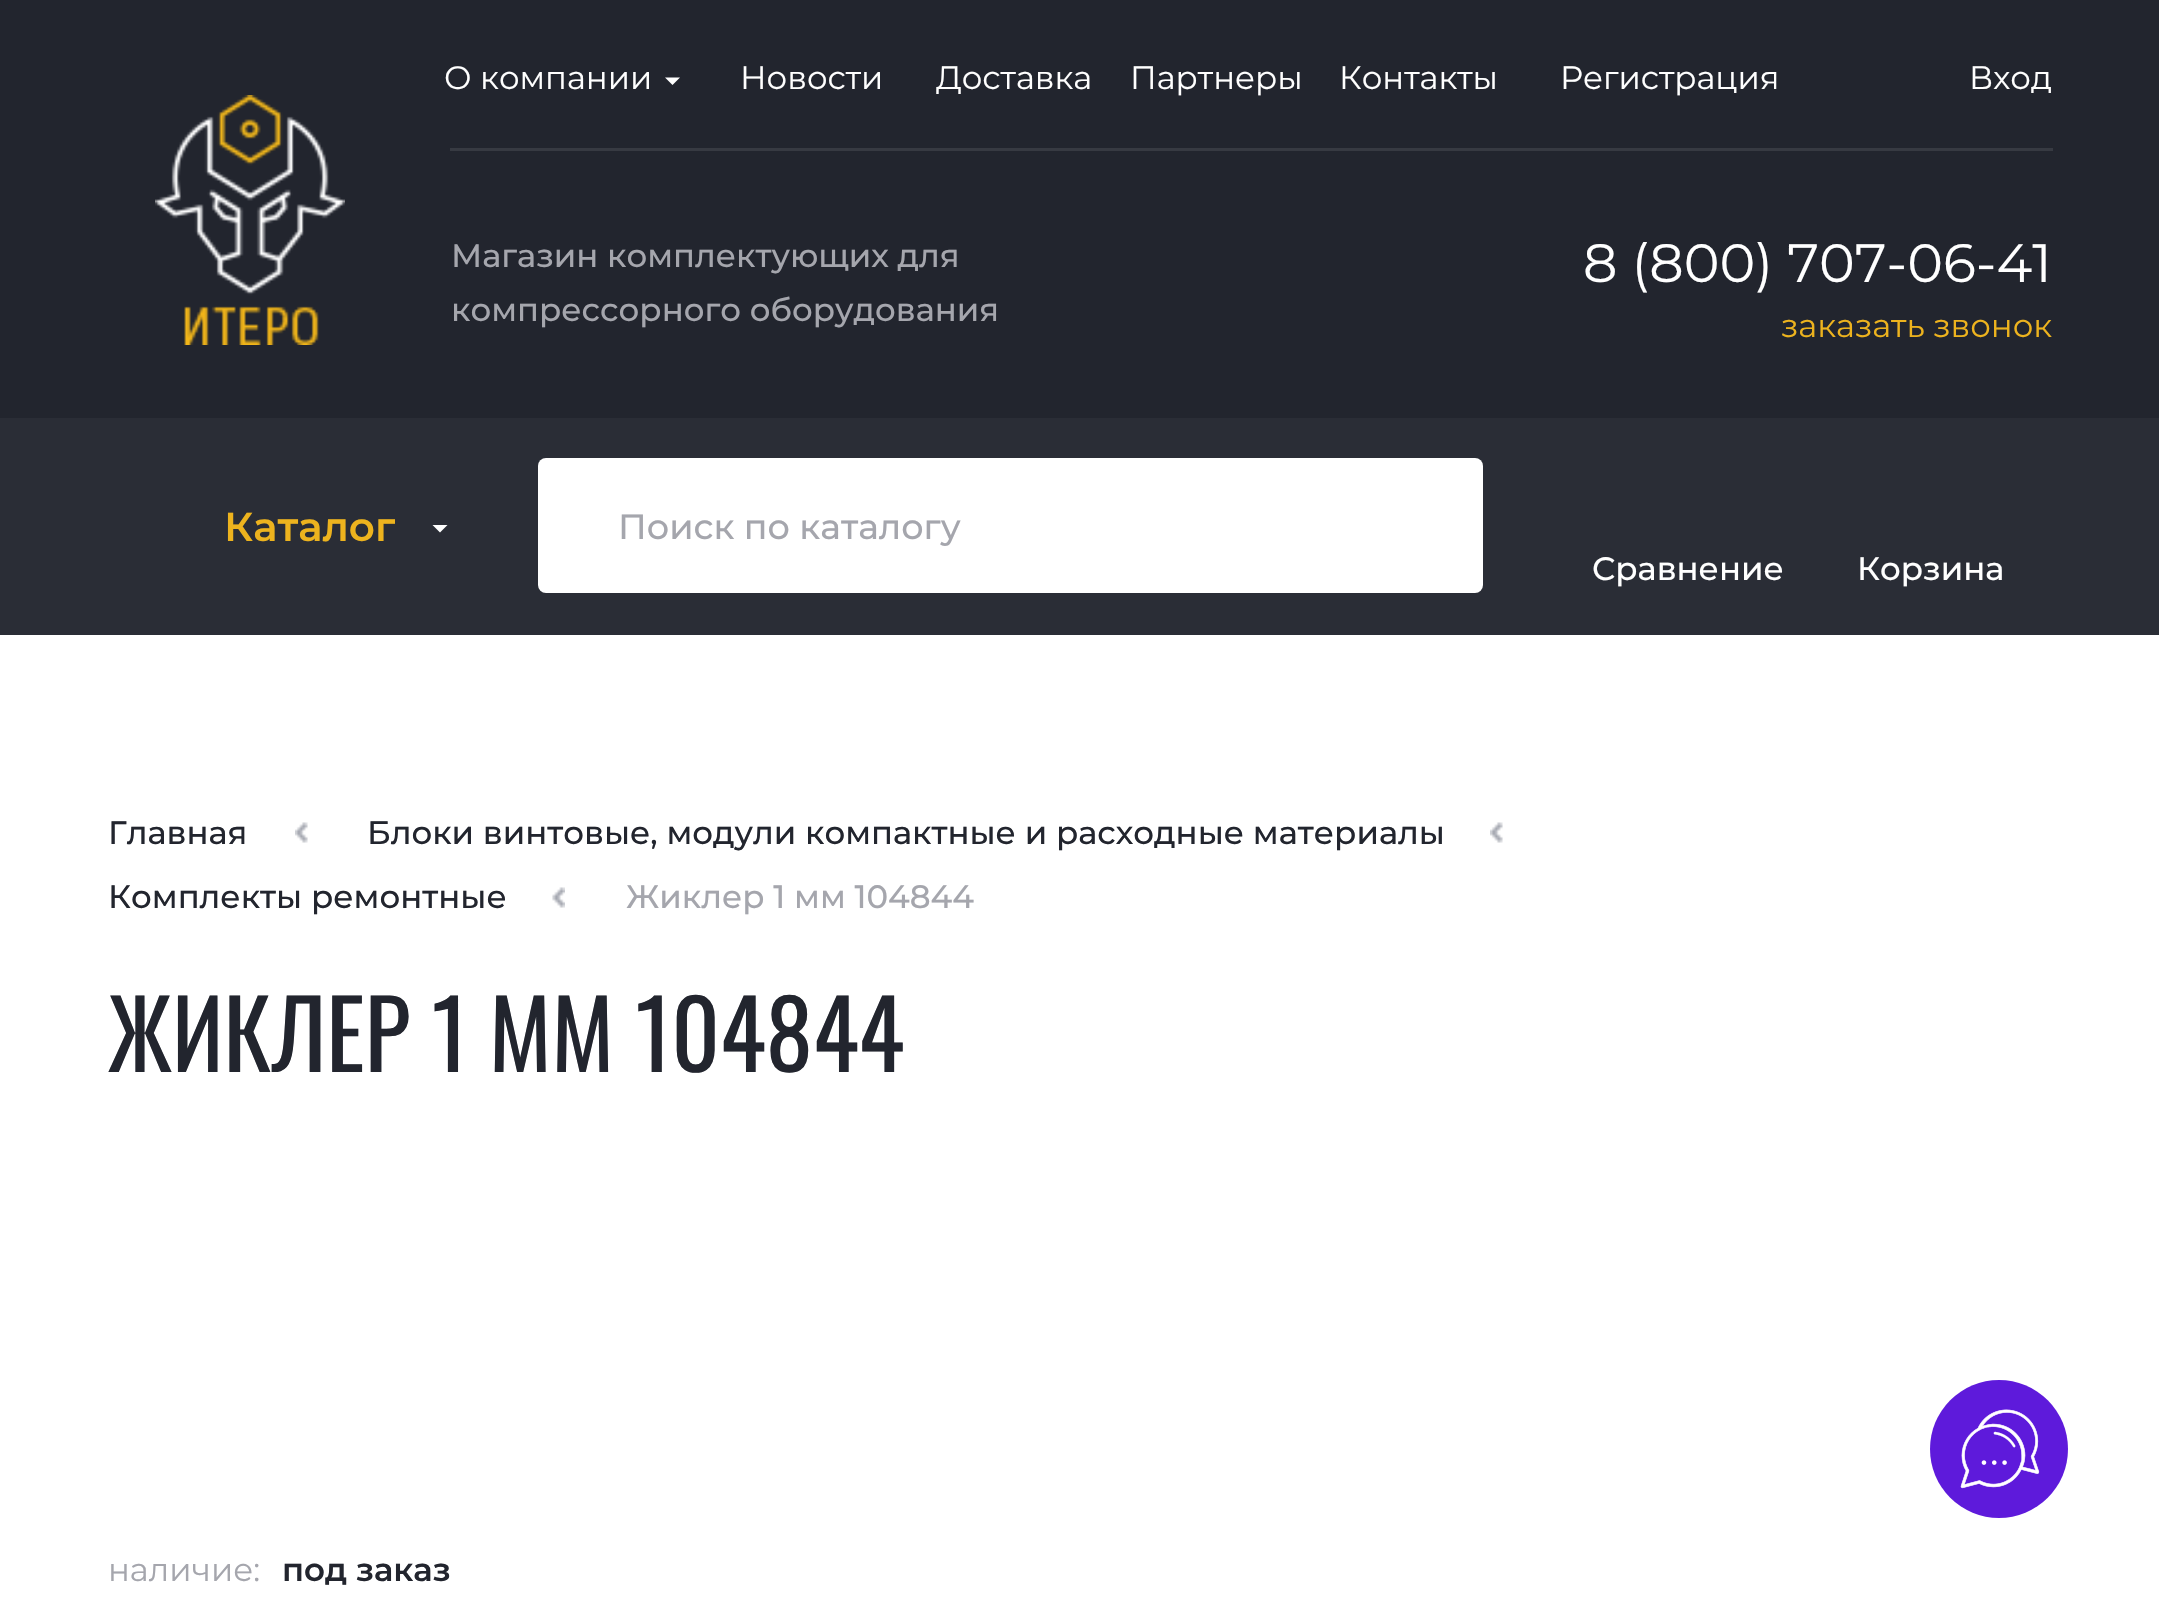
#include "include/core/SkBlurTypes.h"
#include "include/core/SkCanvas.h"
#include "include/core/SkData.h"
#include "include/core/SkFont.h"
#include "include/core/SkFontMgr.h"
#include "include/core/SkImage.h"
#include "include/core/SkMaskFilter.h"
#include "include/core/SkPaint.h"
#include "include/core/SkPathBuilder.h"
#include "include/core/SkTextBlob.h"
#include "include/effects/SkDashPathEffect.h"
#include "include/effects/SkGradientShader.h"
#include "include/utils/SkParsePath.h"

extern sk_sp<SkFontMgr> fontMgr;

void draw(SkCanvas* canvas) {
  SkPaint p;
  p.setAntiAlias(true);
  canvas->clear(SK_ColorWHITE);
  p.setColor(SkColorSetRGB(34, 37, 46));
  canvas->drawRect(SkRect::MakeLTRB(0, 0, 2159, 418), p);
  canvas->drawImageRect(SkImages::DeferredFromEncodedData(SkData::MakeFromFileName("images/1.png")), SkRect::MakeLTRB(155, 95, 345, 345), SkSamplingOptions());
  p.setColor(SkColorSetRGB(55, 58, 66));
  canvas->drawRect(SkRect::MakeLTRB(450, 148, 2053, 151), p);
  p.setColor(SK_ColorWHITE);
  canvas->drawPath(SkPathBuilder().moveTo(665, 77.5f).lineTo(680, 77.5f).lineTo(672.5f, 85).close().detach(), p);
  p.setColor(SkColorSetRGB(42, 45, 54));
  canvas->drawRect(SkRect::MakeLTRB(0, 418, 2159, 635), p);
  p.setColor(SK_ColorWHITE);
  canvas->drawPath(SkPathBuilder().moveTo(432.5f, 525).lineTo(447.5f, 525).lineTo(440, 532.5f).close().detach(), p);
  canvas->drawRoundRect(SkRect::MakeLTRB(538, 458, 1483, 593), 8, 8, p);
  canvas->drawImageRect(SkImages::DeferredFromEncodedData(SkData::MakeFromFileName("images/2.png")), SkRect::MakeLTRB(295, 822, 308, 843), SkSamplingOptions());
  canvas->drawImageRect(SkImages::DeferredFromEncodedData(SkData::MakeFromFileName("images/2.png")), SkRect::MakeLTRB(1490, 822, 1503, 843), SkSamplingOptions());
  canvas->drawImageRect(SkImages::DeferredFromEncodedData(SkData::MakeFromFileName("images/3.png")), SkRect::MakeLTRB(552, 887, 565, 908), SkSamplingOptions());
  p.setColor(SkColorSetRGB(94, 26, 219));
  canvas->drawCircle(1999, 1449, 69, p);
  canvas->drawImageRect(SkImages::DeferredFromEncodedData(SkData::MakeFromFileName("images/4.png")), SkRect::MakeLTRB(1960, 1409, 2040, 1489), SkSamplingOptions());
  SkFont font1(fontMgr->matchFamilyStyle("Montserrat", SkFontStyle::Normal()), 32.4f);
  font1.setSubpixel(true);
  p.setColor(SK_ColorWHITE);
  canvas->drawString("О компании", 444, 89, font1, p);
  canvas->drawString("Новости", 740, 89, font1, p);
  canvas->drawString("Доставка", 936, 89, font1, p);
  canvas->drawString("Партнеры", 1130, 89, font1, p);
  canvas->drawString("Контакты", 1339, 89, font1, p);
  canvas->drawString("Регистрация", 1560, 89, font1, p);
  canvas->drawString("Вход", 1969, 89, font1, p);
  SkFont font2(fontMgr->matchFamilyStyle("Montserrat", SkFontStyle(500, SkFontStyle::kNormal_Width, SkFontStyle::kUpright_Slant)), 32.4f);
  font2.setSubpixel(true);
  p.setColor(SkColorSetRGB(165, 166, 173));
  canvas->drawString("Магазин комплектующих для", 451, 267, font2, p);
  canvas->drawString("компрессорного оборудования", 451, 321, font2, p);
  SkFont font3(fontMgr->matchFamilyStyle("Montserrat", SkFontStyle::Normal()), 54);
  font3.setSubpixel(true);
  p.setColor(SK_ColorWHITE);
  canvas->drawString("8 (800) 707-06-41", 1583, 282, font3, p);
  p.setColor(SkColorSetRGB(237, 179, 30));
  canvas->drawString("заказать звонок", 1781, 337, font1, p);
  SkFont font4(fontMgr->matchFamilyStyle("Montserrat", SkFontStyle(600, SkFontStyle::kNormal_Width, SkFontStyle::kUpright_Slant)), 40.5f);
  font4.setSubpixel(true);
  canvas->drawString("Каталог", 224, 541, font4, p);
  SkFont font5(fontMgr->matchFamilyStyle("Montserrat", SkFontStyle(500, SkFontStyle::kNormal_Width, SkFontStyle::kUpright_Slant)), 35);
  font5.setSubpixel(true);
  p.setColor(SkColorSetRGB(165, 166, 173));
  canvas->drawString("Поиск по каталогу", 618, 539, font5, p);
  p.setColor(SK_ColorWHITE);
  canvas->drawString("Сравнение", 1592, 580, font2, p);
  canvas->drawString("Корзина", 1857, 580, font2, p);
  p.setColor(SkColorSetRGB(34, 37, 46));
  canvas->drawString("Главная", 108, 844, font2, p);
  canvas->drawString("Блоки винтовые, модули компактные и расходные материалы", 367, 844, font2, p);
  canvas->drawString("Комплекты ремонтные", 108, 908, font2, p);
  p.setColor(SkColorSetRGB(165, 166, 173));
  canvas->drawString("Жиклер 1 мм 104844", 626, 908, font2, p);
  SkFont font6(fontMgr->matchFamilyStyle("Oswald", SkFontStyle::Normal()), 94.5f);
  font6.setSubpixel(true);
  p.setColor(SkColorSetRGB(34, 37, 46));
  canvas->drawString("ЖИКЛЕР 1 ММ 104844", 108, 1072, font6, p);
  p.setColor(SkColorSetRGB(165, 166, 173));
  canvas->drawString("наличие:", 108, 1581, font1, p);
  SkFont font7(fontMgr->matchFamilyStyle("Montserrat", SkFontStyle(600, SkFontStyle::kNormal_Width, SkFontStyle::kUpright_Slant)), 32.4f);
  font7.setSubpixel(true);
  p.setColor(SkColorSetRGB(34, 37, 46));
  canvas->drawString("под заказ", 282, 1581, font7, p);
}
